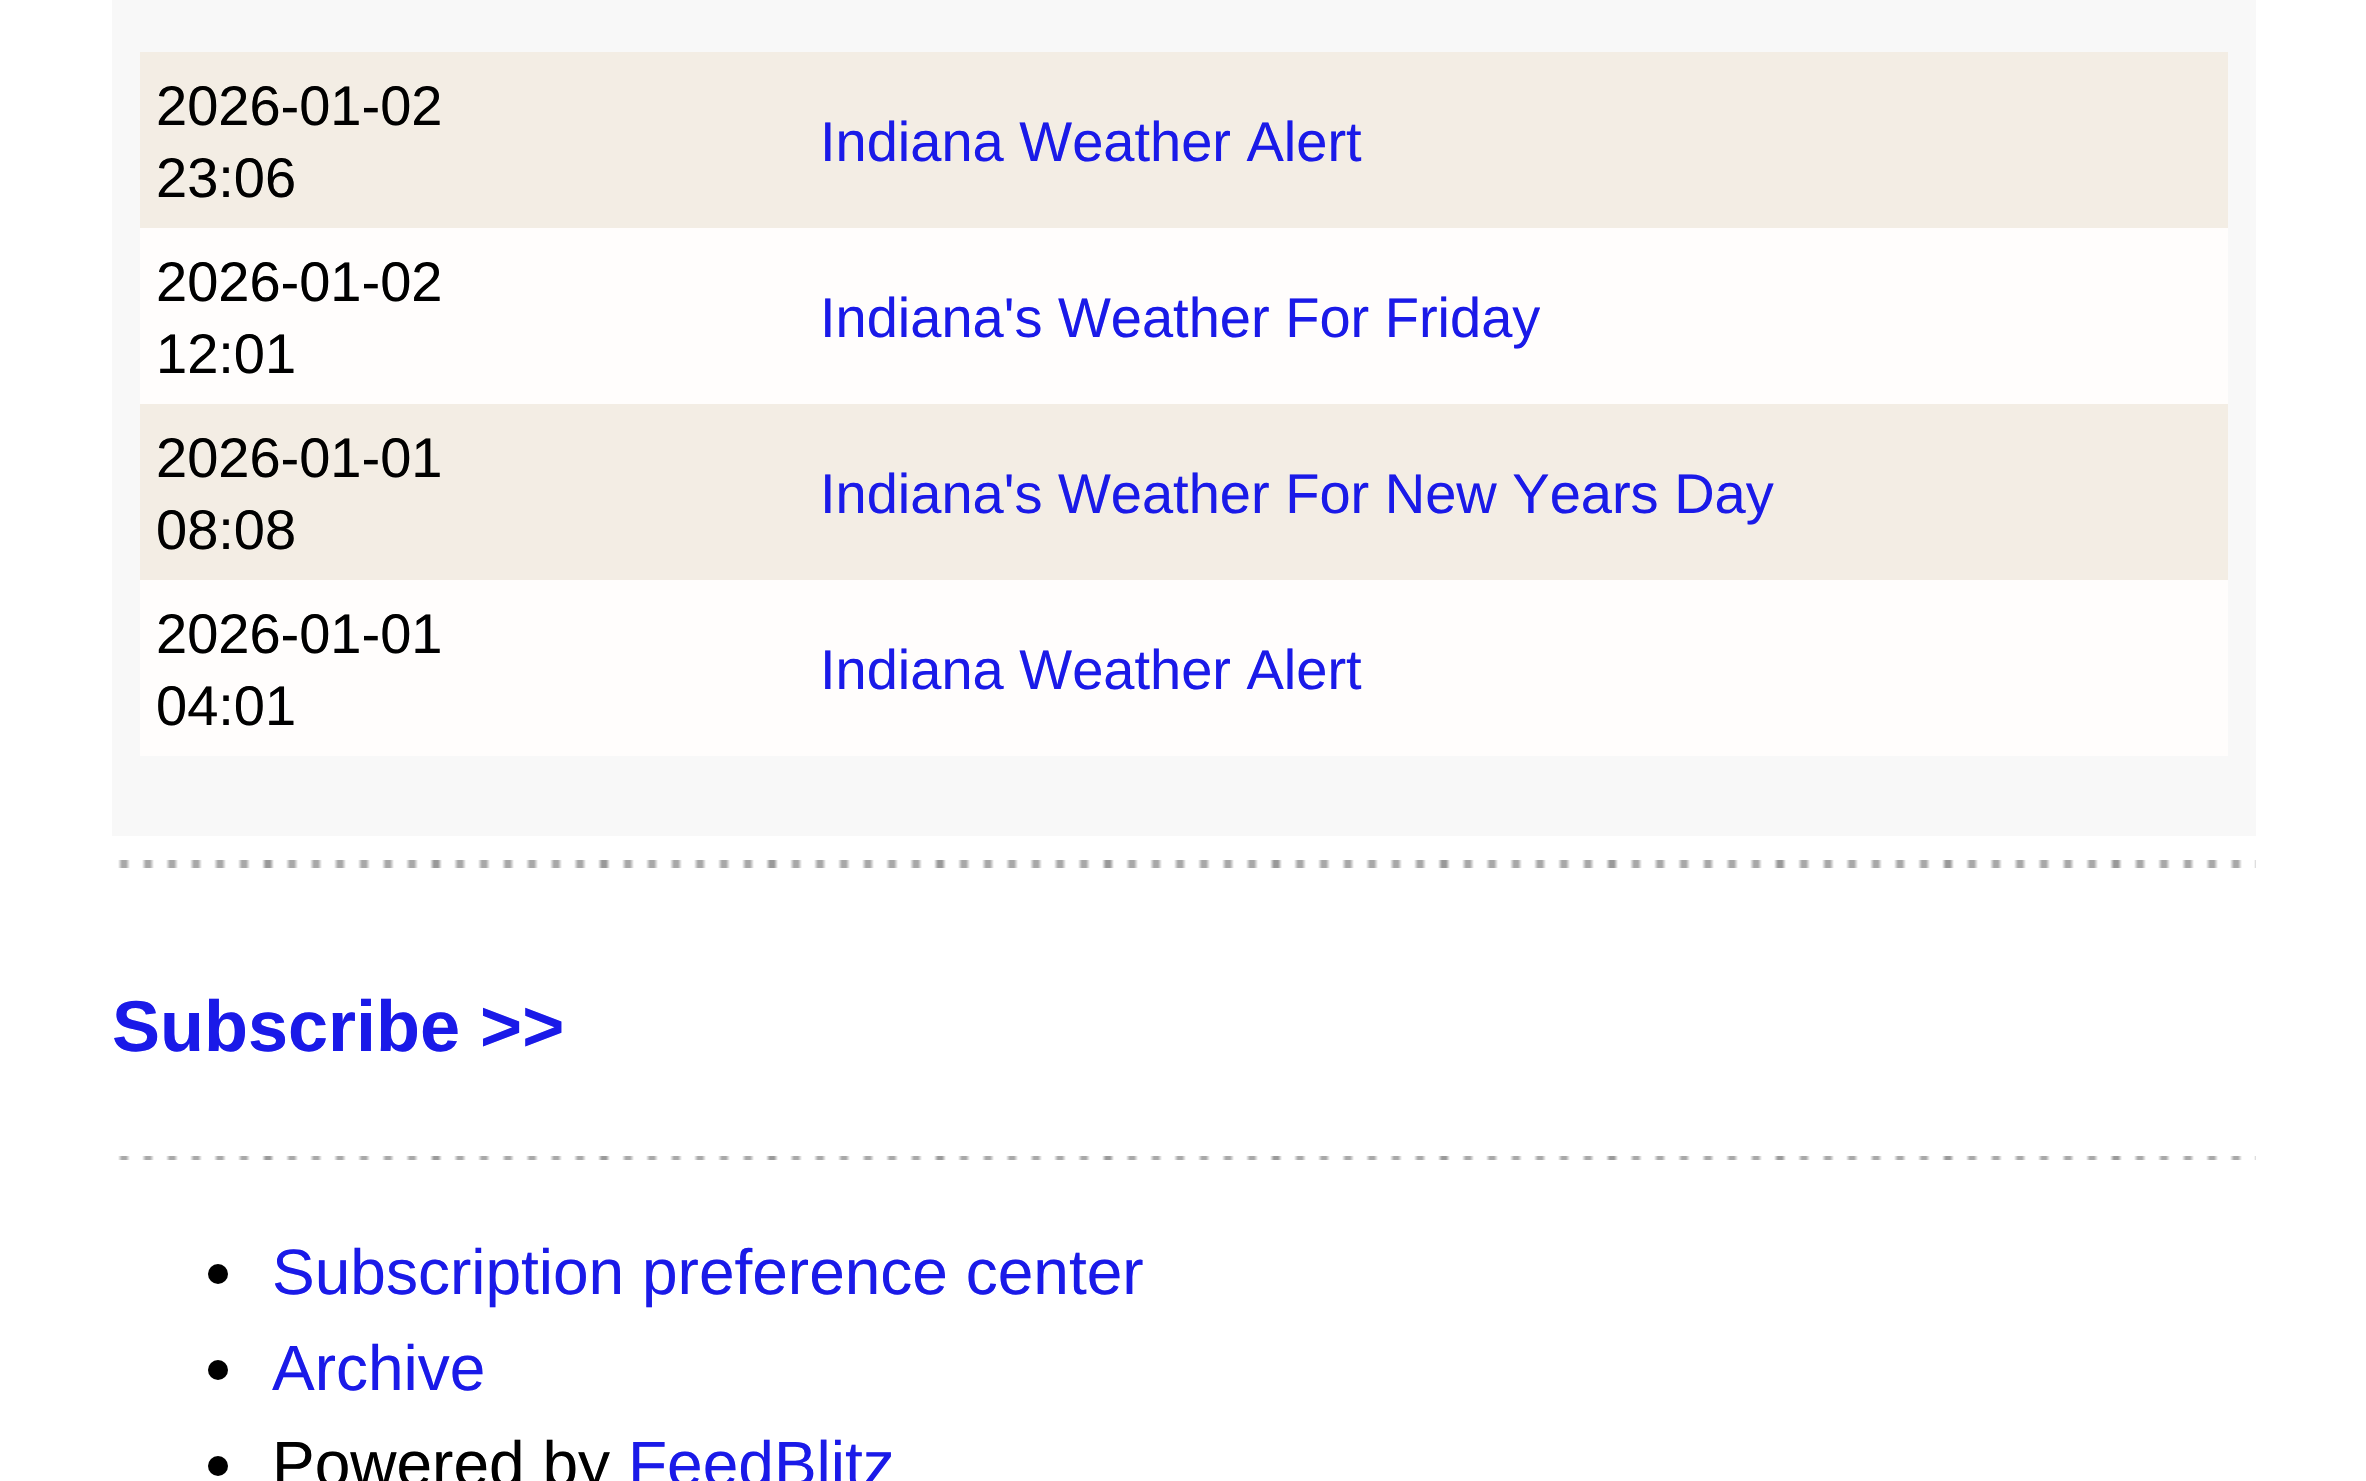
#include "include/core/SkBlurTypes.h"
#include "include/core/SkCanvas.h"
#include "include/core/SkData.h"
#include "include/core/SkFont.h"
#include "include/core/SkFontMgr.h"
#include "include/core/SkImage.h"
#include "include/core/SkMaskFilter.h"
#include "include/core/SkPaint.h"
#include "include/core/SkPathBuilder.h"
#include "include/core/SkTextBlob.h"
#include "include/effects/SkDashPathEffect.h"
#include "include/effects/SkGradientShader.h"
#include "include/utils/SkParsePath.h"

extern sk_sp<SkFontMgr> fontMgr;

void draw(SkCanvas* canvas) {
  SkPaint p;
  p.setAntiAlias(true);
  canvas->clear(SK_ColorWHITE);
  p.setColor(SkColorSetRGB(248, 248, 248));
  canvas->drawRect(SkRect::MakeLTRB(112, 0, 2256, 836), p);
  p.setColor(SkColorSetRGB(243, 237, 228));
  canvas->drawRect(SkRect::MakeLTRB(140, 52, 2228, 228), p);
  p.setColor(SkColorSetRGB(255, 253, 252));
  canvas->drawRect(SkRect::MakeLTRB(140, 228, 2228, 404), p);
  p.setColor(SkColorSetRGB(243, 237, 228));
  canvas->drawRect(SkRect::MakeLTRB(140, 404, 2228, 580), p);
  p.setColor(SkColorSetRGB(255, 253, 252));
  canvas->drawRect(SkRect::MakeLTRB(140, 580, 2228, 756), p);
  canvas->drawImageRect(SkImages::DeferredFromEncodedData(SkData::MakeFromFileName("images/1.png")), SkRect::MakeLTRB(118, 860, 2256, 868), SkSamplingOptions());
  canvas->drawImageRect(SkImages::DeferredFromEncodedData(SkData::MakeFromFileName("images/2.png")), SkRect::MakeLTRB(118, 1156, 2256, 1160), SkSamplingOptions());
  p.setColor(SK_ColorBLACK);
  canvas->drawCircle(218, 1274, 10, p);
  canvas->drawCircle(218, 1370, 10, p);
  canvas->drawCircle(218, 1466, 10, p);
  SkFont font1(fontMgr->matchFamilyStyle("Liberation Sans", SkFontStyle::Normal()), 56);
  font1.setSubpixel(true);
  canvas->drawString("2026-01-02", 156, 125, font1, p);
  canvas->drawString("23:06", 156, 197, font1, p);
  p.setColor(SkColorSetRGB(26, 26, 232));
  canvas->drawString("Indiana Weather Alert", 820, 161, font1, p);
  p.setColor(SK_ColorBLACK);
  canvas->drawString("2026-01-02", 156, 301, font1, p);
  canvas->drawString("12:01", 156, 373, font1, p);
  p.setColor(SkColorSetRGB(26, 26, 232));
  canvas->drawString("Indiana's Weather For Friday", 820, 337, font1, p);
  p.setColor(SK_ColorBLACK);
  canvas->drawString("2026-01-01", 156, 477, font1, p);
  canvas->drawString("08:08", 156, 549, font1, p);
  p.setColor(SkColorSetRGB(26, 26, 232));
  canvas->drawString("Indiana's Weather For New Years Day", 820, 513, font1, p);
  p.setColor(SK_ColorBLACK);
  canvas->drawString("2026-01-01", 156, 653, font1, p);
  canvas->drawString("04:01", 156, 725, font1, p);
  p.setColor(SkColorSetRGB(26, 26, 232));
  canvas->drawString("Indiana Weather Alert", 820, 689, font1, p);
  SkFont font2(fontMgr->matchFamilyStyle("Liberation Sans", SkFontStyle::Bold()), 72);
  font2.setSubpixel(true);
  canvas->drawString("Subscribe >>", 112, 1051, font2, p);
  SkFont font3(fontMgr->matchFamilyStyle("Liberation Sans", SkFontStyle::Normal()), 64);
  font3.setSubpixel(true);
  canvas->drawString("Subscription preference center", 272, 1294, font3, p);
  canvas->drawString("Archive", 272, 1390, font3, p);
  p.setColor(SK_ColorBLACK);
  canvas->drawString("Powered by", 272, 1486, font3, p);
  p.setColor(SkColorSetRGB(26, 26, 232));
  canvas->drawString("FeedBlitz", 628, 1486, font3, p);
}
